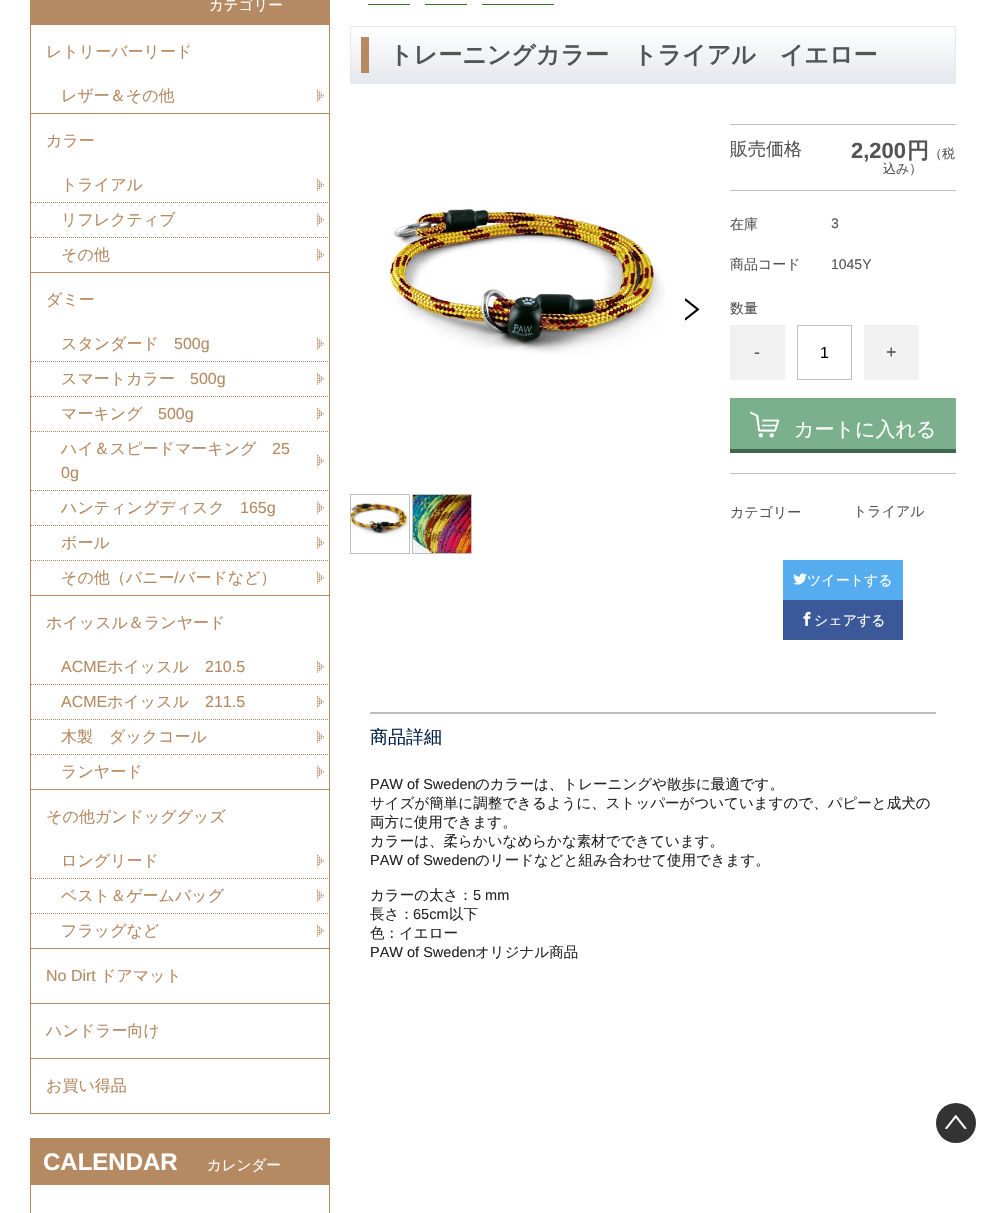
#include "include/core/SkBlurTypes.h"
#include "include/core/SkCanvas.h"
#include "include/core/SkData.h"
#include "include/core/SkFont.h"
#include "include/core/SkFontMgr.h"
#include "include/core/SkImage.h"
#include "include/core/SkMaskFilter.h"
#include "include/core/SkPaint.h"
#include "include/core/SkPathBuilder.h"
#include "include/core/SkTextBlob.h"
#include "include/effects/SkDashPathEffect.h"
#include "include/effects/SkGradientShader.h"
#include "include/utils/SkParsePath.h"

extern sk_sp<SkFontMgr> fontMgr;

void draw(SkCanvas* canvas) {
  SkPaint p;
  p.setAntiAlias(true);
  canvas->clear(SK_ColorWHITE);
  p.setStyle(SkPaint::kStroke_Style);
  p.setStrokeWidth(1);
  p.setColor(SkColorSetRGB(181, 138, 98));
  canvas->drawRect(SkRect::MakeLTRB(30.5f, -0.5f, 329.5f, 1113.5f), p);
  p.setStyle(SkPaint::kFill_Style);
  canvas->drawRect(SkRect::MakeLTRB(31, 0, 329, 25), p);
  canvas->drawRect(SkRect::MakeLTRB(31, 113, 329, 114), p);
  canvas->drawImageRect(SkImages::DeferredFromEncodedData(SkData::MakeFromFileName("images/1.png")), SkRect::MakeLTRB(317, 89, 324, 102), SkSamplingOptions());
  canvas->drawRect(SkRect::MakeLTRB(31, 272, 329, 273), p);
  p.setStyle(SkPaint::kStroke_Style);
  p.setPathEffect(SkDashPathEffect::Make({{1, 1}}, 0));
  canvas->drawPath(SkPathBuilder().moveTo(31, 202.5f).lineTo(329, 202.5f).detach(), p);
  p.setPathEffect(nullptr);
  canvas->drawImageRect(SkImages::DeferredFromEncodedData(SkData::MakeFromFileName("images/1.png")), SkRect::MakeLTRB(317, 178, 324, 191), SkSamplingOptions());
  p.setPathEffect(SkDashPathEffect::Make({{1, 1}}, 0));
  canvas->drawPath(SkPathBuilder().moveTo(31, 237.5f).lineTo(329, 237.5f).detach(), p);
  p.setPathEffect(nullptr);
  canvas->drawImageRect(SkImages::DeferredFromEncodedData(SkData::MakeFromFileName("images/1.png")), SkRect::MakeLTRB(317, 213, 324, 226), SkSamplingOptions());
  canvas->drawImageRect(SkImages::DeferredFromEncodedData(SkData::MakeFromFileName("images/1.png")), SkRect::MakeLTRB(317, 248, 324, 261), SkSamplingOptions());
  p.setStyle(SkPaint::kFill_Style);
  canvas->drawRect(SkRect::MakeLTRB(31, 595, 329, 596), p);
  p.setStyle(SkPaint::kStroke_Style);
  p.setPathEffect(SkDashPathEffect::Make({{1, 1}}, 0));
  canvas->drawPath(SkPathBuilder().moveTo(31, 361.5f).lineTo(329, 361.5f).detach(), p);
  p.setPathEffect(nullptr);
  canvas->drawImageRect(SkImages::DeferredFromEncodedData(SkData::MakeFromFileName("images/1.png")), SkRect::MakeLTRB(317, 337, 324, 350), SkSamplingOptions());
  p.setPathEffect(SkDashPathEffect::Make({{1, 1}}, 0));
  canvas->drawPath(SkPathBuilder().moveTo(31, 396.5f).lineTo(329, 396.5f).detach(), p);
  p.setPathEffect(nullptr);
  canvas->drawImageRect(SkImages::DeferredFromEncodedData(SkData::MakeFromFileName("images/1.png")), SkRect::MakeLTRB(317, 372, 324, 385), SkSamplingOptions());
  p.setPathEffect(SkDashPathEffect::Make({{1, 1}}, 0));
  canvas->drawPath(SkPathBuilder().moveTo(31, 431.5f).lineTo(329, 431.5f).detach(), p);
  p.setPathEffect(nullptr);
  canvas->drawImageRect(SkImages::DeferredFromEncodedData(SkData::MakeFromFileName("images/1.png")), SkRect::MakeLTRB(317, 407, 324, 420), SkSamplingOptions());
  p.setPathEffect(SkDashPathEffect::Make({{1, 1}}, 0));
  canvas->drawPath(SkPathBuilder().moveTo(31, 490.5f).lineTo(329, 490.5f).detach(), p);
  p.setPathEffect(nullptr);
  canvas->drawImageRect(SkImages::DeferredFromEncodedData(SkData::MakeFromFileName("images/1.png")), SkRect::MakeLTRB(317, 454, 324, 467), SkSamplingOptions());
  p.setPathEffect(SkDashPathEffect::Make({{1, 1}}, 0));
  canvas->drawPath(SkPathBuilder().moveTo(31, 525.5f).lineTo(329, 525.5f).detach(), p);
  p.setPathEffect(nullptr);
  canvas->drawImageRect(SkImages::DeferredFromEncodedData(SkData::MakeFromFileName("images/1.png")), SkRect::MakeLTRB(317, 501, 324, 514), SkSamplingOptions());
  p.setPathEffect(SkDashPathEffect::Make({{1, 1}}, 0));
  canvas->drawPath(SkPathBuilder().moveTo(31, 560.5f).lineTo(329, 560.5f).detach(), p);
  p.setPathEffect(nullptr);
  canvas->drawImageRect(SkImages::DeferredFromEncodedData(SkData::MakeFromFileName("images/1.png")), SkRect::MakeLTRB(317, 536, 324, 549), SkSamplingOptions());
  canvas->drawImageRect(SkImages::DeferredFromEncodedData(SkData::MakeFromFileName("images/1.png")), SkRect::MakeLTRB(317, 571, 324, 584), SkSamplingOptions());
  p.setStyle(SkPaint::kFill_Style);
  canvas->drawRect(SkRect::MakeLTRB(31, 789, 329, 790), p);
  p.setStyle(SkPaint::kStroke_Style);
  p.setPathEffect(SkDashPathEffect::Make({{1, 1}}, 0));
  canvas->drawPath(SkPathBuilder().moveTo(31, 684.5f).lineTo(329, 684.5f).detach(), p);
  p.setPathEffect(nullptr);
  canvas->drawImageRect(SkImages::DeferredFromEncodedData(SkData::MakeFromFileName("images/1.png")), SkRect::MakeLTRB(317, 660, 324, 673), SkSamplingOptions());
  p.setPathEffect(SkDashPathEffect::Make({{1, 1}}, 0));
  canvas->drawPath(SkPathBuilder().moveTo(31, 719.5f).lineTo(329, 719.5f).detach(), p);
  p.setPathEffect(nullptr);
  canvas->drawImageRect(SkImages::DeferredFromEncodedData(SkData::MakeFromFileName("images/1.png")), SkRect::MakeLTRB(317, 695, 324, 708), SkSamplingOptions());
  p.setPathEffect(SkDashPathEffect::Make({{1, 1}}, 0));
  canvas->drawPath(SkPathBuilder().moveTo(31, 754.5f).lineTo(329, 754.5f).detach(), p);
  p.setPathEffect(nullptr);
  canvas->drawImageRect(SkImages::DeferredFromEncodedData(SkData::MakeFromFileName("images/1.png")), SkRect::MakeLTRB(317, 730, 324, 743), SkSamplingOptions());
  canvas->drawImageRect(SkImages::DeferredFromEncodedData(SkData::MakeFromFileName("images/1.png")), SkRect::MakeLTRB(317, 765, 324, 778), SkSamplingOptions());
  p.setStyle(SkPaint::kFill_Style);
  canvas->drawRect(SkRect::MakeLTRB(31, 948, 329, 949), p);
  p.setStyle(SkPaint::kStroke_Style);
  p.setPathEffect(SkDashPathEffect::Make({{1, 1}}, 0));
  canvas->drawPath(SkPathBuilder().moveTo(31, 878.5f).lineTo(329, 878.5f).detach(), p);
  p.setPathEffect(nullptr);
  canvas->drawImageRect(SkImages::DeferredFromEncodedData(SkData::MakeFromFileName("images/1.png")), SkRect::MakeLTRB(317, 854, 324, 867), SkSamplingOptions());
  p.setPathEffect(SkDashPathEffect::Make({{1, 1}}, 0));
  canvas->drawPath(SkPathBuilder().moveTo(31, 913.5f).lineTo(329, 913.5f).detach(), p);
  p.setPathEffect(nullptr);
  canvas->drawImageRect(SkImages::DeferredFromEncodedData(SkData::MakeFromFileName("images/1.png")), SkRect::MakeLTRB(317, 889, 324, 902), SkSamplingOptions());
  canvas->drawImageRect(SkImages::DeferredFromEncodedData(SkData::MakeFromFileName("images/1.png")), SkRect::MakeLTRB(317, 924, 324, 937), SkSamplingOptions());
  p.setStyle(SkPaint::kFill_Style);
  canvas->drawRect(SkRect::MakeLTRB(31, 1003, 329, 1004), p);
  canvas->drawRect(SkRect::MakeLTRB(31, 1058, 329, 1059), p);
  p.setStyle(SkPaint::kStroke_Style);
  canvas->drawRect(SkRect::MakeLTRB(30.5f, 1138.5f, 329.5f, 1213.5f), p);
  p.setStyle(SkPaint::kFill_Style);
  canvas->drawRect(SkRect::MakeLTRB(31, 1139, 329, 1185), p);
  p.setColor(SkColorSetRGB(56, 118, 29));
  canvas->drawRect(SkRect::MakeLTRB(368, 4, 410, 5), p);
  canvas->drawRect(SkRect::MakeLTRB(425, 4, 467, 5), p);
  canvas->drawRect(SkRect::MakeLTRB(482, 4, 554, 5), p);
  {
    const SkColor colors[] = {SK_ColorWHITE, SkColorSetRGB(229, 232, 236)};
    const float stops[] = {0, 1};
    const SkPoint ends[] = {{653, 27}, {653, 83}};
    p.setShader(SkGradientShader::MakeLinear(ends, colors, stops, 2, SkTileMode::kClamp));
    p.setAlpha(255);
  }
  canvas->drawRect(SkRect::MakeLTRB(351, 32, 955, 83), p);
  p.setStyle(SkPaint::kStroke_Style);
  p.setShader(nullptr);
  p.setColor(SkColorSetRGB(229, 232, 236));
  canvas->drawRect(SkRect::MakeLTRB(350.5f, 26.5f, 955.5f, 83.5f), p);
  p.setStyle(SkPaint::kFill_Style);
  p.setColor(SkColorSetRGB(181, 138, 98));
  canvas->drawRect(SkRect::MakeLTRB(361, 37, 369, 73), p);
  canvas->drawImageRect(SkImages::DeferredFromEncodedData(SkData::MakeFromFileName("images/2.png")), SkRect::MakeLTRB(386, 205, 665, 355), SkSamplingOptions());
  canvas->drawImageRect(SkImages::DeferredFromEncodedData(SkData::MakeFromFileName("images/3.png")), SkRect::MakeLTRB(685, 298, 700, 321), SkSamplingOptions());
  p.setStyle(SkPaint::kStroke_Style);
  p.setColor(SkColorSetRGB(191, 191, 191));
  canvas->drawRect(SkRect::MakeLTRB(350.5f, 494.5f, 409.5f, 553.5f), p);
  canvas->drawImageRect(SkImages::DeferredFromEncodedData(SkData::MakeFromFileName("images/4.png")), SkRect::MakeLTRB(351, 503, 409, 535), SkSamplingOptions());
  canvas->drawRect(SkRect::MakeLTRB(412.5f, 494.5f, 471.5f, 553.5f), p);
  canvas->drawImageRect(SkImages::DeferredFromEncodedData(SkData::MakeFromFileName("images/5.png")), SkRect::MakeLTRB(413, 495, 471, 553), SkSamplingOptions());
  p.setStyle(SkPaint::kFill_Style);
  canvas->drawRect(SkRect::MakeLTRB(730, 124, 956, 125), p);
  canvas->drawRect(SkRect::MakeLTRB(730, 190, 956, 191), p);
  canvas->drawRect(SkRect::MakeLTRB(730, 473, 956, 474), p);
  p.setColor(SkColorSetRGB(241, 241, 241));
  canvas->drawRect(SkRect::MakeLTRB(730, 325, 785, 380), p);
  p.setStyle(SkPaint::kStroke_Style);
  p.setColor(SkColorSetRGB(191, 191, 191));
  canvas->drawRect(SkRect::MakeLTRB(797.5f, 325.5f, 851.5f, 379.5f), p);
  p.setStyle(SkPaint::kFill_Style);
  p.setColor(SkColorSetRGB(241, 241, 241));
  canvas->drawRect(SkRect::MakeLTRB(864, 325, 919, 380), p);
  p.setColor(SkColorSetRGB(122, 177, 140));
  canvas->drawRect(SkRect::MakeLTRB(730, 398, 956, 449), p);
  p.setColor(SkColorSetRGB(65, 102, 78));
  canvas->drawRect(SkRect::MakeLTRB(730, 449, 956, 453), p);
  canvas->drawImageRect(SkImages::DeferredFromEncodedData(SkData::MakeFromFileName("images/6.png")), SkRect::MakeLTRB(750, 411, 780, 438), SkSamplingOptions());
  p.setColor(SkColorSetRGB(85, 172, 238));
  canvas->drawRect(SkRect::MakeLTRB(783, 560, 903, 600), p);
  canvas->drawImageRect(SkImages::DeferredFromEncodedData(SkData::MakeFromFileName("images/7.png")), SkRect::MakeLTRB(793, 573, 807, 585), SkSamplingOptions());
  p.setColor(SkColorSetRGB(59, 89, 152));
  canvas->drawRect(SkRect::MakeLTRB(783, 600, 903, 640), p);
  canvas->drawImageRect(SkImages::DeferredFromEncodedData(SkData::MakeFromFileName("images/8.png")), SkRect::MakeLTRB(803, 611, 811, 626), SkSamplingOptions());
  p.setColor(SkColorSetRGB(191, 191, 191));
  canvas->drawRect(SkRect::MakeLTRB(370, 712, 936, 714), p);
  p.setColor(SkColorSetRGB(51, 51, 51));
  canvas->drawCircle(956, 1123, 20, p);
  canvas->drawImageRect(SkImages::DeferredFromEncodedData(SkData::MakeFromFileName("images/9.png")), SkRect::MakeLTRB(945, 1114, 967, 1129), SkSamplingOptions());
  SkFont font1(fontMgr->matchFamilyStyle("WenQuanYi Zen Hei", SkFontStyle(500, SkFontStyle::kNormal_Width, SkFontStyle::kUpright_Slant)), 14.5f);
  font1.setSubpixel(true);
  p.setColor(SK_ColorWHITE);
  canvas->drawString("カテゴリー", 209, 10, font1, p);
  SkFont font2(fontMgr->matchFamilyStyle("WenQuanYi Zen Hei", SkFontStyle(500, SkFontStyle::kNormal_Width, SkFontStyle::kUpright_Slant)), 16);
  font2.setSubpixel(true);
  p.setColor(SkColorSetRGB(181, 138, 98));
  canvas->drawString("レトリーバーリード", 46, 57, font2, p);
  canvas->drawString("レザー＆その他", 61, 101, font2, p);
  canvas->drawString("カラー", 46, 146, font2, p);
  canvas->drawString("トライアル", 61, 190, font2, p);
  canvas->drawString("リフレクティブ", 61, 225, font2, p);
  canvas->drawString("その他", 61, 260, font2, p);
  canvas->drawString("ダミー", 46, 305, font2, p);
  canvas->drawString("スタンダード", 61, 349, font2, p);
  SkFont font3(fontMgr->matchFamilyStyle("Liberation Sans", SkFontStyle::Normal()), 16);
  font3.setSubpixel(true);
  canvas->drawString("500g", 174, 349, font3, p);
  canvas->drawString("スマートカラー", 61, 384, font2, p);
  canvas->drawString("500g", 190, 384, font3, p);
  canvas->drawString("マーキング", 61, 419, font2, p);
  canvas->drawString("500g", 158, 419, font3, p);
  canvas->drawString("ハイ＆スピードマーキング", 61, 454, font2, p);
  canvas->drawString("25", 272, 454, font3, p);
  canvas->drawString("0g", 61, 478, font3, p);
  canvas->drawString("ハンティングディスク", 61, 513, font2, p);
  canvas->drawString("165g", 240, 513, font3, p);
  canvas->drawString("ボール", 61, 548, font2, p);
  canvas->drawString("その他（バニー", 61, 583, font2, p);
  canvas->drawString("/", 174, 583, font3, p);
  canvas->drawString("バードなど）", 179, 583, font2, p);
  canvas->drawString("ホイッスル＆ランヤード", 46, 628, font2, p);
  canvas->drawString("ACME", 61, 672, font3, p);
  canvas->drawString("ホイッスル", 107, 672, font2, p);
  canvas->drawString("210.5", 205, 672, font3, p);
  canvas->drawString("ACME", 61, 707, font3, p);
  canvas->drawString("ホイッスル", 107, 707, font2, p);
  canvas->drawString("211.5", 205, 707, font3, p);
  canvas->drawString("木製　ダックコール", 61, 742, font2, p);
  canvas->drawString("ランヤード", 61, 777, font2, p);
  canvas->drawString("その他ガンドッググッズ", 46, 822, font2, p);
  canvas->drawString("ロングリード", 61, 866, font2, p);
  canvas->drawString("ベスト＆ゲームバッグ", 61, 901, font2, p);
  canvas->drawString("フラッグなど", 61, 936, font2, p);
  canvas->drawString("No Dirt", 46, 981, font3, p);
  canvas->drawString("ドアマット", 100, 981, font2, p);
  canvas->drawString("ハンドラー向け", 46, 1036, font2, p);
  canvas->drawString("お買い得品", 46, 1091, font2, p);
  SkFont font4(fontMgr->matchFamilyStyle("Liberation Sans", SkFontStyle::Bold()), 24);
  font4.setSubpixel(true);
  p.setColor(SK_ColorWHITE);
  canvas->drawString("CALENDAR", 43, 1170, font4, p);
  canvas->drawString("カレンダー", 207, 1170, font1, p);
  SkFont font5(fontMgr->matchFamilyStyle("WenQuanYi Zen Hei", SkFontStyle::Bold()), 24);
  font5.setSubpixel(true);
  p.setColor(SkColorSetRGB(84, 84, 84));
  canvas->drawString("トレーニングカラー　トライアル　イエロー", 389, 63, font5, p);
  SkFont font6(fontMgr->matchFamilyStyle("WenQuanYi Zen Hei", SkFontStyle(500, SkFontStyle::kNormal_Width, SkFontStyle::kUpright_Slant)), 18);
  font6.setSubpixel(true);
  canvas->drawString("販売価格", 730, 155, font6, p);
  SkFont font7(fontMgr->matchFamilyStyle("Liberation Sans", SkFontStyle::Bold()), 22);
  font7.setSubpixel(true);
  canvas->drawString("2,200", 851, 158, font7, p);
  SkFont font8(fontMgr->matchFamilyStyle("WenQuanYi Zen Hei", SkFontStyle::Bold()), 22);
  font8.setSubpixel(true);
  canvas->drawString("円", 907, 158, font8, p);
  SkFont font9(fontMgr->matchFamilyStyle("WenQuanYi Zen Hei", SkFontStyle(500, SkFontStyle::kNormal_Width, SkFontStyle::kUpright_Slant)), 13);
  font9.setSubpixel(true);
  canvas->drawString("（税", 929, 158, font9, p);
  canvas->drawString("込み）", 883, 173, font9, p);
  SkFont font10(fontMgr->matchFamilyStyle("WenQuanYi Zen Hei", SkFontStyle(500, SkFontStyle::kNormal_Width, SkFontStyle::kUpright_Slant)), 14);
  font10.setSubpixel(true);
  canvas->drawString("在庫", 730, 229, font10, p);
  SkFont font11(fontMgr->matchFamilyStyle("Liberation Sans", SkFontStyle::Normal()), 14);
  font11.setSubpixel(true);
  canvas->drawString("3", 831, 228, font11, p);
  canvas->drawString("商品コード", 730, 269, font10, p);
  canvas->drawString("1045Y", 831, 269, font11, p);
  canvas->drawString("数量", 730, 313, font10, p);
  SkFont font12(fontMgr->matchFamilyStyle("Liberation Sans", SkFontStyle::Normal()), 18);
  font12.setSubpixel(true);
  canvas->drawString("-", 754, 358, font12, p);
  p.setColor(SK_ColorBLACK);
  canvas->drawString("1", 820, 358, font3, p);
  p.setColor(SkColorSetRGB(84, 84, 84));
  canvas->drawString("+", 886, 358, font12, p);
  SkFont font13(fontMgr->matchFamilyStyle("WenQuanYi Zen Hei", SkFontStyle(500, SkFontStyle::kNormal_Width, SkFontStyle::kUpright_Slant)), 20);
  font13.setSubpixel(true);
  p.setColor(SK_ColorWHITE);
  canvas->drawString("カートに入れる", 794, 436, font13, p);
  p.setColor(SkColorSetRGB(84, 84, 84));
  canvas->drawString("カテゴリー", 730, 517, font10, p);
  canvas->drawString("トライアル", 853, 516, font10, p);
  p.setColor(SK_ColorWHITE);
  canvas->drawString("ツイートする", 807, 585, font10, p);
  canvas->drawString("シェアする", 814, 625, font10, p);
  p.setColor(SkColorSetRGB(0, 30, 67));
  canvas->drawString("商品詳細", 370, 743, font6, p);
  SkFont font14(fontMgr->matchFamilyStyle("Liberation Sans", SkFontStyle::Normal()), 14.5f);
  font14.setSubpixel(true);
  p.setColor(SkColorSetRGB(37, 37, 37));
  canvas->drawString("PAW of Sweden", 370, 789, font14, p);
  canvas->drawString("のカラーは、トレーニングや散歩に最適です。", 475, 789, font1, p);
  canvas->drawString("サイズが簡単に調整できるように、ストッパーがついていますので、パピーと成犬の", 370, 808, font1, p);
  canvas->drawString("両方に使用できます。", 370, 827, font1, p);
  canvas->drawString("カラーは、柔らかいなめらかな素材でできています。", 370, 846, font1, p);
  canvas->drawString("PAW of Sweden", 370, 865, font14, p);
  canvas->drawString("のリードなどと組み合わせて使用できます。", 475, 865, font1, p);
  canvas->drawString("カラーの太さ：", 370, 900, font1, p);
  canvas->drawString("5 mm", 473, 900, font14, p);
  canvas->drawString("長さ：", 370, 919, font1, p);
  canvas->drawString("65cm", 413, 919, font14, p);
  canvas->drawString("以下", 449, 919, font1, p);
  canvas->drawString("色：イエロー", 370, 938, font1, p);
  canvas->drawString("PAW of Sweden", 370, 957, font14, p);
  canvas->drawString("オリジナル商品", 475, 957, font1, p);
}
